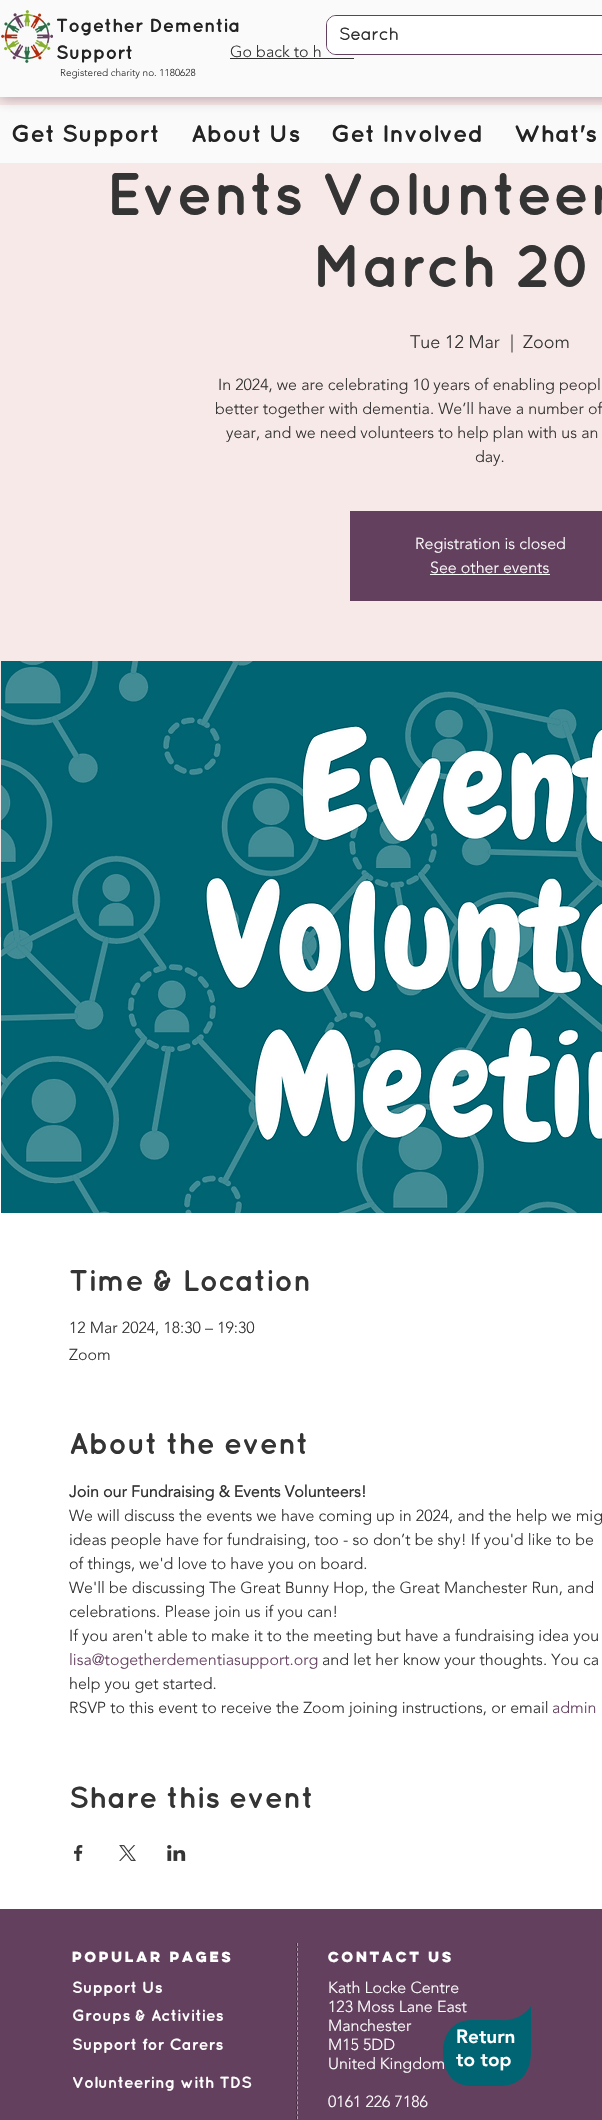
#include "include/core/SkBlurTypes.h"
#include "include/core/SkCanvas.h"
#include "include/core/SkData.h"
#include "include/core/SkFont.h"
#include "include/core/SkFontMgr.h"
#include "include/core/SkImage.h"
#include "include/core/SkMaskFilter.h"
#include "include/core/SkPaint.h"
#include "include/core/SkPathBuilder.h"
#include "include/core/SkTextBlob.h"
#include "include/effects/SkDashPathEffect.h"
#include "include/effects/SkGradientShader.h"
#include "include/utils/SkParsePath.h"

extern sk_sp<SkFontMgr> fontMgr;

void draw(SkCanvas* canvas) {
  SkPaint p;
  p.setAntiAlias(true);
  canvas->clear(SK_ColorWHITE);
  p.setColor(SkColorSetRGB(247, 233, 231));
  canvas->drawRect(SkRect::MakeLTRB(0, 97, 602, 937), p);
  p.setColor(SkColorSetRGB(250, 250, 250));
  canvas->drawRect(SkRect::MakeLTRB(0, 105, 602, 163), p);
  p.setColor(SkColorSetARGB(122, 100, 64, 95));
  p.setMaskFilter(SkMaskFilter::MakeBlur(kNormal_SkBlurStyle, 6.5f));
  canvas->drawRect(SkRect::MakeLTRB(0, 1, 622, 98), p);
  p.setMaskFilter(nullptr);
  p.setColor(SkColorSetRGB(250, 250, 250));
  canvas->drawRect(SkRect::MakeLTRB(0, 0, 602, 97), p);
  canvas->drawImageRect(SkImages::DeferredFromEncodedData(SkData::MakeFromFileName("images/1.png")), SkRect::MakeLTRB(1, 10, 53, 63), SkSamplingOptions());
  p.setColor(SkColorSetRGB(52, 52, 52));
  canvas->drawRect(SkRect::MakeLTRB(230, 58, 354, 59), p);
  p.setStyle(SkPaint::kStroke_Style);
  p.setStrokeWidth(1);
  p.setColor(SkColorSetRGB(100, 64, 95));
  canvas->drawRoundRect(SkRect::MakeLTRB(326.5f, 15.5f, 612.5f, 54.5f), 9.5f, 9.5f, p);
  p.setStyle(SkPaint::kFill_Style);
  p.setColor(SK_ColorWHITE);
  canvas->drawRoundRect(SkRect::MakeLTRB(327, 16, 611, 54), 9, 9, p);
  p.setColor(SkColorSetRGB(100, 64, 95));
  canvas->drawRect(SkRect::MakeLTRB(350, 511, 602, 601), p);
  p.setColor(SK_ColorWHITE);
  canvas->drawRect(SkRect::MakeLTRB(430, 574, 550, 575), p);
  canvas->drawImageRect(SkImages::DeferredFromEncodedData(SkData::MakeFromFileName("images/2.png")), SkRect::MakeLTRB(1, 661, 602, 1213), SkSamplingOptions());
  canvas->drawImageRect(SkImages::DeferredFromEncodedData(SkData::MakeFromFileName("images/3.png")), SkRect::MakeLTRB(74, 1845, 83, 1861), SkSamplingOptions());
  canvas->drawImageRect(SkImages::DeferredFromEncodedData(SkData::MakeFromFileName("images/4.png")), SkRect::MakeLTRB(119, 1845, 136, 1861), SkSamplingOptions());
  canvas->drawImageRect(SkImages::DeferredFromEncodedData(SkData::MakeFromFileName("images/5.png")), SkRect::MakeLTRB(167, 1845, 186, 1861), SkSamplingOptions());
  p.setColor(SkColorSetRGB(100, 64, 95));
  canvas->drawRect(SkRect::MakeLTRB(0, 1909, 602, 2120), p);
  p.setStyle(SkPaint::kStroke_Style);
  p.setColor(SkColorSetRGB(65, 42, 62));
  p.setPathEffect(SkDashPathEffect::Make({{3, 1.95f}}, 0));
  canvas->drawPath(SkPathBuilder().moveTo(296.5f, 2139).lineTo(296.5f, 1943).detach(), p);
  p.setPathEffect(nullptr);
  p.setColor(SkColorSetRGB(178, 160, 175));
  p.setPathEffect(SkDashPathEffect::Make({{3, 1.95f}}, 0));
  canvas->drawPath(SkPathBuilder().moveTo(297.5f, 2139).lineTo(297.5f, 1943).detach(), p);
  p.setPathEffect(nullptr);
  SkFont font1(fontMgr->matchFamilyStyle("Quicksand", SkFontStyle::Bold()), 19);
  font1.setSubpixel(true);
  p.setStyle(SkPaint::kFill_Style);
  p.setColor(SkColorSetRGB(36, 35, 35));
  canvas->drawString("Together Dementia", 56, 32, font1, p);
  canvas->drawString("Support", 56, 59, font1, p);
  SkFont font2(fontMgr->matchFamilyStyle("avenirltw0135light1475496", SkFontStyle(300, SkFontStyle::kNormal_Width, SkFontStyle::kUpright_Slant)), 10);
  font2.setSubpixel(true);
  p.setColor(SkColorSetRGB(52, 52, 52));
  canvas->drawString("Registered charity no. 1180628", 60, 76, font2, p);
  SkFont font3(fontMgr->matchFamilyStyle("avenirltw0135light1475496", SkFontStyle(300, SkFontStyle::kNormal_Width, SkFontStyle::kUpright_Slant)), 16);
  font3.setSubpixel(true);
  canvas->drawString("Go back to h", 230, 57, font3, p);
  SkFont font4(fontMgr->matchFamilyStyle("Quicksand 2", SkFontStyle::Bold()), 17);
  font4.setSubpixel(true);
  p.setColor(SkColorSetRGB(47, 46, 46));
  canvas->drawString("Search", 339, 40, font4, p);
  SkFont font5(fontMgr->matchFamilyStyle("Quicksand", SkFontStyle::Bold()), 24);
  font5.setSubpixel(true);
  p.setColor(SkColorSetRGB(36, 35, 35));
  canvas->drawString("Get Support", 11, 142, font5, p);
  canvas->drawString("About Us", 191, 142, font5, p);
  canvas->drawString("Get Involved", 331, 142, font5, p);
  canvas->drawString("What's", 514, 142, font5, p);
  SkFont font6(fontMgr->matchFamilyStyle("Quicksand", SkFontStyle::Bold()), 60);
  font6.setSubpixel(true);
  p.setColor(SkColorSetRGB(52, 52, 52));
  canvas->drawString("Events Volunteer", 106, 215, font6, p);
  canvas->drawString("March 20", 312, 287, font6, p);
  SkFont font7(fontMgr->matchFamilyStyle("avenirltw0135light1475496", SkFontStyle(300, SkFontStyle::kNormal_Width, SkFontStyle::kUpright_Slant)), 18);
  font7.setSubpixel(true);
  canvas->drawString("Tue 12 Mar", 410, 348, font7, p);
  canvas->drawString("|", 510, 348, font7, p);
  canvas->drawString("Zoom", 523, 348, font7, p);
  canvas->drawString("In 2024, we are celebrating 10 years of enabling peopl", 218, 390, font3, p);
  canvas->drawString("better together with dementia. We’ll have a number of", 215, 414, font3, p);
  canvas->drawString("year, and we need volunteers to help plan with us an", 226, 438, font3, p);
  canvas->drawString("day.", 475, 462, font3, p);
  p.setColor(SK_ColorWHITE);
  canvas->drawString("Registration is closed", 415, 549, font3, p);
  canvas->drawString("See other events", 430, 573, font3, p);
  SkFont font8(fontMgr->matchFamilyStyle("Quicksand", SkFontStyle::Bold()), 30);
  font8.setSubpixel(true);
  p.setColor(SkColorSetRGB(52, 52, 52));
  canvas->drawString("Time & Location", 69, 1291, font8, p);
  canvas->drawString("12 Mar 2024, 18:30 – 19:30", 69, 1333, font3, p);
  canvas->drawString("Zoom", 69, 1360, font3, p);
  canvas->drawString("About the event", 69, 1454, font8, p);
  SkFont font9(fontMgr->matchFamilyStyle("avenirltw0135light1475496", SkFontStyle::Bold()), 16);
  font9.setSubpixel(true);
  canvas->drawString("Join our Fundraising & Events Volunteers!", 69, 1497, font9, p);
  canvas->drawString("We will discuss the events we have coming up in 2024, and the help we mig", 69, 1521, font3, p);
  canvas->drawString("ideas people have for fundraising, too - so don’t be shy! If you'd like to be", 69, 1545, font3, p);
  canvas->drawString("of things, we'd love to have you on board.", 69, 1569, font3, p);
  canvas->drawString("We'll be discussing The Great Bunny Hop, the Great Manchester Run, and", 69, 1593, font3, p);
  canvas->drawString("celebrations. Please join us if you can!", 69, 1617, font3, p);
  canvas->drawString("If you aren't able to make it to the meeting but have a fundraising idea you", 69, 1641, font3, p);
  p.setColor(SkColorSetRGB(100, 64, 95));
  canvas->drawString("lisa@togetherdementiasupport.org", 69, 1665, font3, p);
  p.setColor(SkColorSetRGB(52, 52, 52));
  canvas->drawString("and let her know your thoughts. You ca", 322, 1665, font3, p);
  canvas->drawString("help you get started.", 69, 1689, font3, p);
  canvas->drawString("RSVP to this event to receive the Zoom joining instructions, or email", 69, 1713, font3, p);
  p.setColor(SkColorSetRGB(100, 64, 95));
  canvas->drawString("admin", 552, 1713, font3, p);
  p.setColor(SkColorSetRGB(52, 52, 52));
  canvas->drawString("Share this event", 69, 1808, font8, p);
  SkFont font10(fontMgr->matchFamilyStyle("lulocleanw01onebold", SkFontStyle::Bold()), 13);
  font10.setSubpixel(true);
  p.setColor(SK_ColorWHITE);
  canvas->drawString("Popular pages", 72, 1962, font10, p);
  canvas->drawString("contact us", 328, 1962, font10, p);
  SkFont font11(fontMgr->matchFamilyStyle("Quicksand", SkFontStyle::Bold()), 16);
  font11.setSubpixel(true);
  canvas->drawString("Support Us", 72, 1993, font11, p);
  canvas->drawString("Kath Locke Centre", 328, 1993, font3, p);
  canvas->drawString("123 Moss Lane East", 328, 2012, font3, p);
  canvas->drawString("Manchester", 328, 2031, font3, p);
  canvas->drawString("M15 5DD", 328, 2050, font3, p);
  canvas->drawString("United Kingdom", 328, 2069, font3, p);
  canvas->drawString("0161 226 7186", 328, 2107, font3, p);
  canvas->drawString("Groups & Activities", 72, 2021, font11, p);
  canvas->drawString("Support for Carers", 72, 2050, font11, p);
  canvas->drawString("Volunteering with TDS", 72, 2088, font11, p);
  p.setColor(SkColorSetRGB(0, 100, 114));
  canvas->drawPath(SkPathBuilder().moveTo(443, 2052).cubicTo(443, 2034, 453, 2020, 471, 2020).lineTo(500, 2020).cubicTo(521, 2022, 531, 2006, 531, 2006).lineTo(531, 2052).cubicTo(531, 2075, 518, 2086, 500, 2086).lineTo(471, 2086).cubicTo(453, 2086, 443, 2072, 443, 2052).close().detach(), p);
  SkFont font12(fontMgr->matchFamilyStyle("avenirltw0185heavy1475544", SkFontStyle(900, SkFontStyle::kNormal_Width, SkFontStyle::kUpright_Slant)), 19);
  font12.setSubpixel(true);
  p.setColor(SK_ColorWHITE);
  canvas->drawString("Return", 456, 2043, font12, p);
  canvas->drawString("to top", 456, 2066, font12, p);
}
